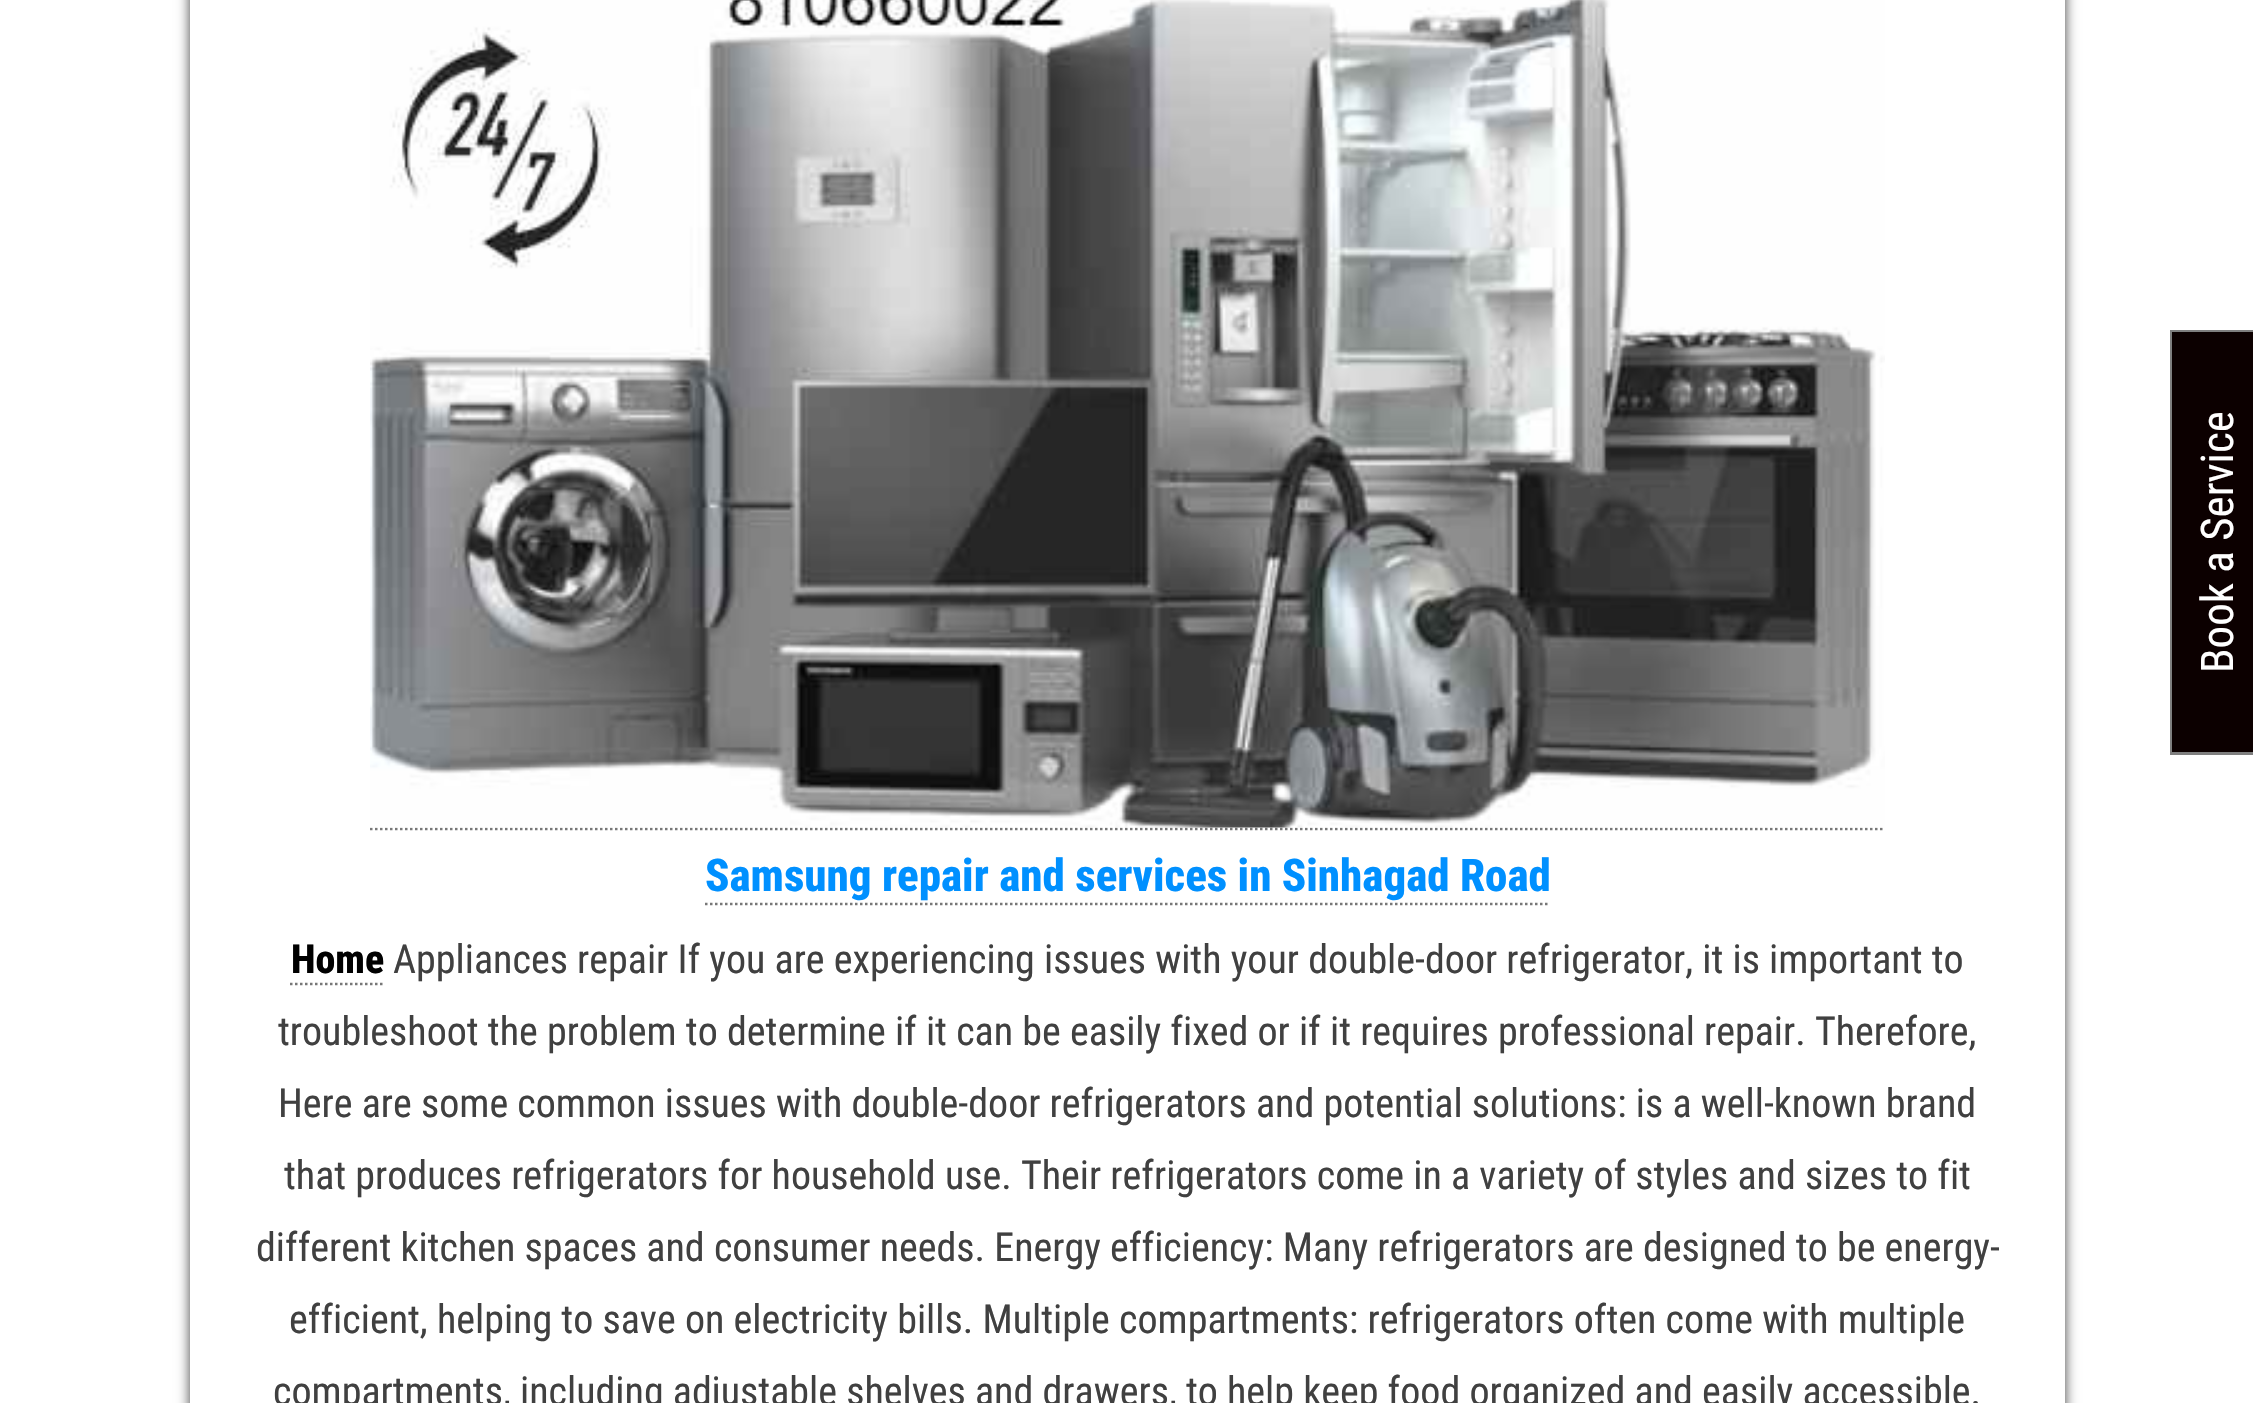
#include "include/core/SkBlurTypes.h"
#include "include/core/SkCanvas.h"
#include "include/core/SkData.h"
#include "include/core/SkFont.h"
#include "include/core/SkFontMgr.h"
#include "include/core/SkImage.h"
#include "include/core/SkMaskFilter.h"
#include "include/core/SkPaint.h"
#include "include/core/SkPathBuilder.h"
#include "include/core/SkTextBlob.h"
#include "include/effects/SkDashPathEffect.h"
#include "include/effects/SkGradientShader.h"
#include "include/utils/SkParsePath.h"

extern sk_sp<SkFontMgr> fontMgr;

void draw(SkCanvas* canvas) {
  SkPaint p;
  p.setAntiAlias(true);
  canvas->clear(SK_ColorWHITE);
  p.setColor(SkColorSetRGB(12, 0, 0));
  canvas->drawRect(SkRect::MakeLTRB(2172, 332, 2253, 752), p);
  p.setColor(SkColorSetRGB(127, 127, 127));
  canvas->drawRect(SkRect::MakeLTRB(2170, 330, 2172, 755), p);
  canvas->drawRect(SkRect::MakeLTRB(2170, 330, 2253, 332), p);
  canvas->drawRect(SkRect::MakeLTRB(2170, 752, 2253, 755), p);
  canvas->save();
  canvas->clipPath(SkPathBuilder(SkPathFillType::kEvenOdd).moveTo(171, 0).lineTo(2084, 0).lineTo(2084, 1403).lineTo(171, 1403).close().moveTo(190, -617).lineTo(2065, -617).lineTo(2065, 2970).lineTo(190, 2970).close().detach(), true);
  p.setColor(SkColorSetARGB(191, 0, 0, 0));
  p.setMaskFilter(SkMaskFilter::MakeBlur(kNormal_SkBlurStyle, 6));
  canvas->drawRect(SkRect::MakeLTRB(190, -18, 2065, 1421), p);
  p.setMaskFilter(nullptr);
  canvas->restore();
  p.setStyle(SkPaint::kStroke_Style);
  p.setStrokeWidth(2.5f);
  p.setColor(SkColorSetRGB(119, 119, 119));
  p.setPathEffect(SkDashPathEffect::Make({{2.5f, 2.5f}}, 0));
  canvas->drawPath(SkPathBuilder().moveTo(370, 829).lineTo(1885, 829).detach(), p);
  p.setPathEffect(nullptr);
  canvas->drawImageRect(SkImages::DeferredFromEncodedData(SkData::MakeFromFileName("images/1.png")), SkRect::MakeLTRB(370, 0, 1885, 828), SkSamplingOptions());
  p.setPathEffect(SkDashPathEffect::Make({{2.5f, 2.5f}}, 0));
  canvas->drawPath(SkPathBuilder().moveTo(705, 904).lineTo(1550, 904).detach(), p);
  p.setPathEffect(nullptr);
  p.setPathEffect(SkDashPathEffect::Make({{2.5f, 2.5f}}, 0));
  canvas->drawPath(SkPathBuilder().moveTo(290, 984).lineTo(385, 984).detach(), p);
  p.setPathEffect(nullptr);
  SkFont font1(fontMgr->matchFamilyStyle("Roboto Condensed", SkFontStyle::Normal()), 45);
  font1.setSubpixel(true);
  p.setStyle(SkPaint::kFill_Style);
  p.setColor(SK_ColorWHITE);
  canvas->save();
  canvas->rotate(-90, 2233, 673);
  canvas->drawString("Book a Service", 2233, 673, font1, p);
  canvas->restore();
  SkFont font2(fontMgr->matchFamilyStyle("Roboto Condensed", SkFontStyle(800, SkFontStyle::kNormal_Width, SkFontStyle::kUpright_Slant)), 45);
  font2.setSubpixel(true);
  p.setColor(SkColorSetRGB(0, 144, 255));
  canvas->drawString("Samsung repair and services in Sinhagad Road", 705, 891, font2, p);
  SkFont font3(fontMgr->matchFamilyStyle("Roboto Condensed", SkFontStyle(800, SkFontStyle::kNormal_Width, SkFontStyle::kUpright_Slant)), 40);
  font3.setSubpixel(true);
  p.setColor(SK_ColorBLACK);
  canvas->drawString("Home", 291, 973, font3, p);
  SkFont font4(fontMgr->matchFamilyStyle("Roboto Condensed", SkFontStyle::Normal()), 40);
  font4.setSubpixel(true);
  p.setColor(SkColorSetRGB(64, 64, 64));
  canvas->drawString("Appliances repair If you are experiencing issues with your double-door refrigerator, it is important to", 393, 973, font4, p);
  canvas->drawString("troubleshoot the problem to determine if it can be easily fixed or if it requires professional repair. Therefore,", 278, 1045, font4, p);
  canvas->drawString("Here are some common issues with double-door refrigerators and potential solutions: is a well-known brand", 278, 1117, font4, p);
  canvas->drawString("that produces refrigerators for household use. Their refrigerators come in a variety of styles and sizes to fit", 284, 1189, font4, p);
  canvas->drawString("different kitchen spaces and consumer needs. Energy efficiency: Many refrigerators are designed to be energy-", 256, 1261, font4, p);
  canvas->drawString("efficient, helping to save on electricity bills. Multiple compartments: refrigerators often come with multiple", 289, 1333, font4, p);
  canvas->drawString("compartments, including adjustable shelves and drawers, to help keep food organized and easily accessible.", 273, 1405, font4, p);
}
